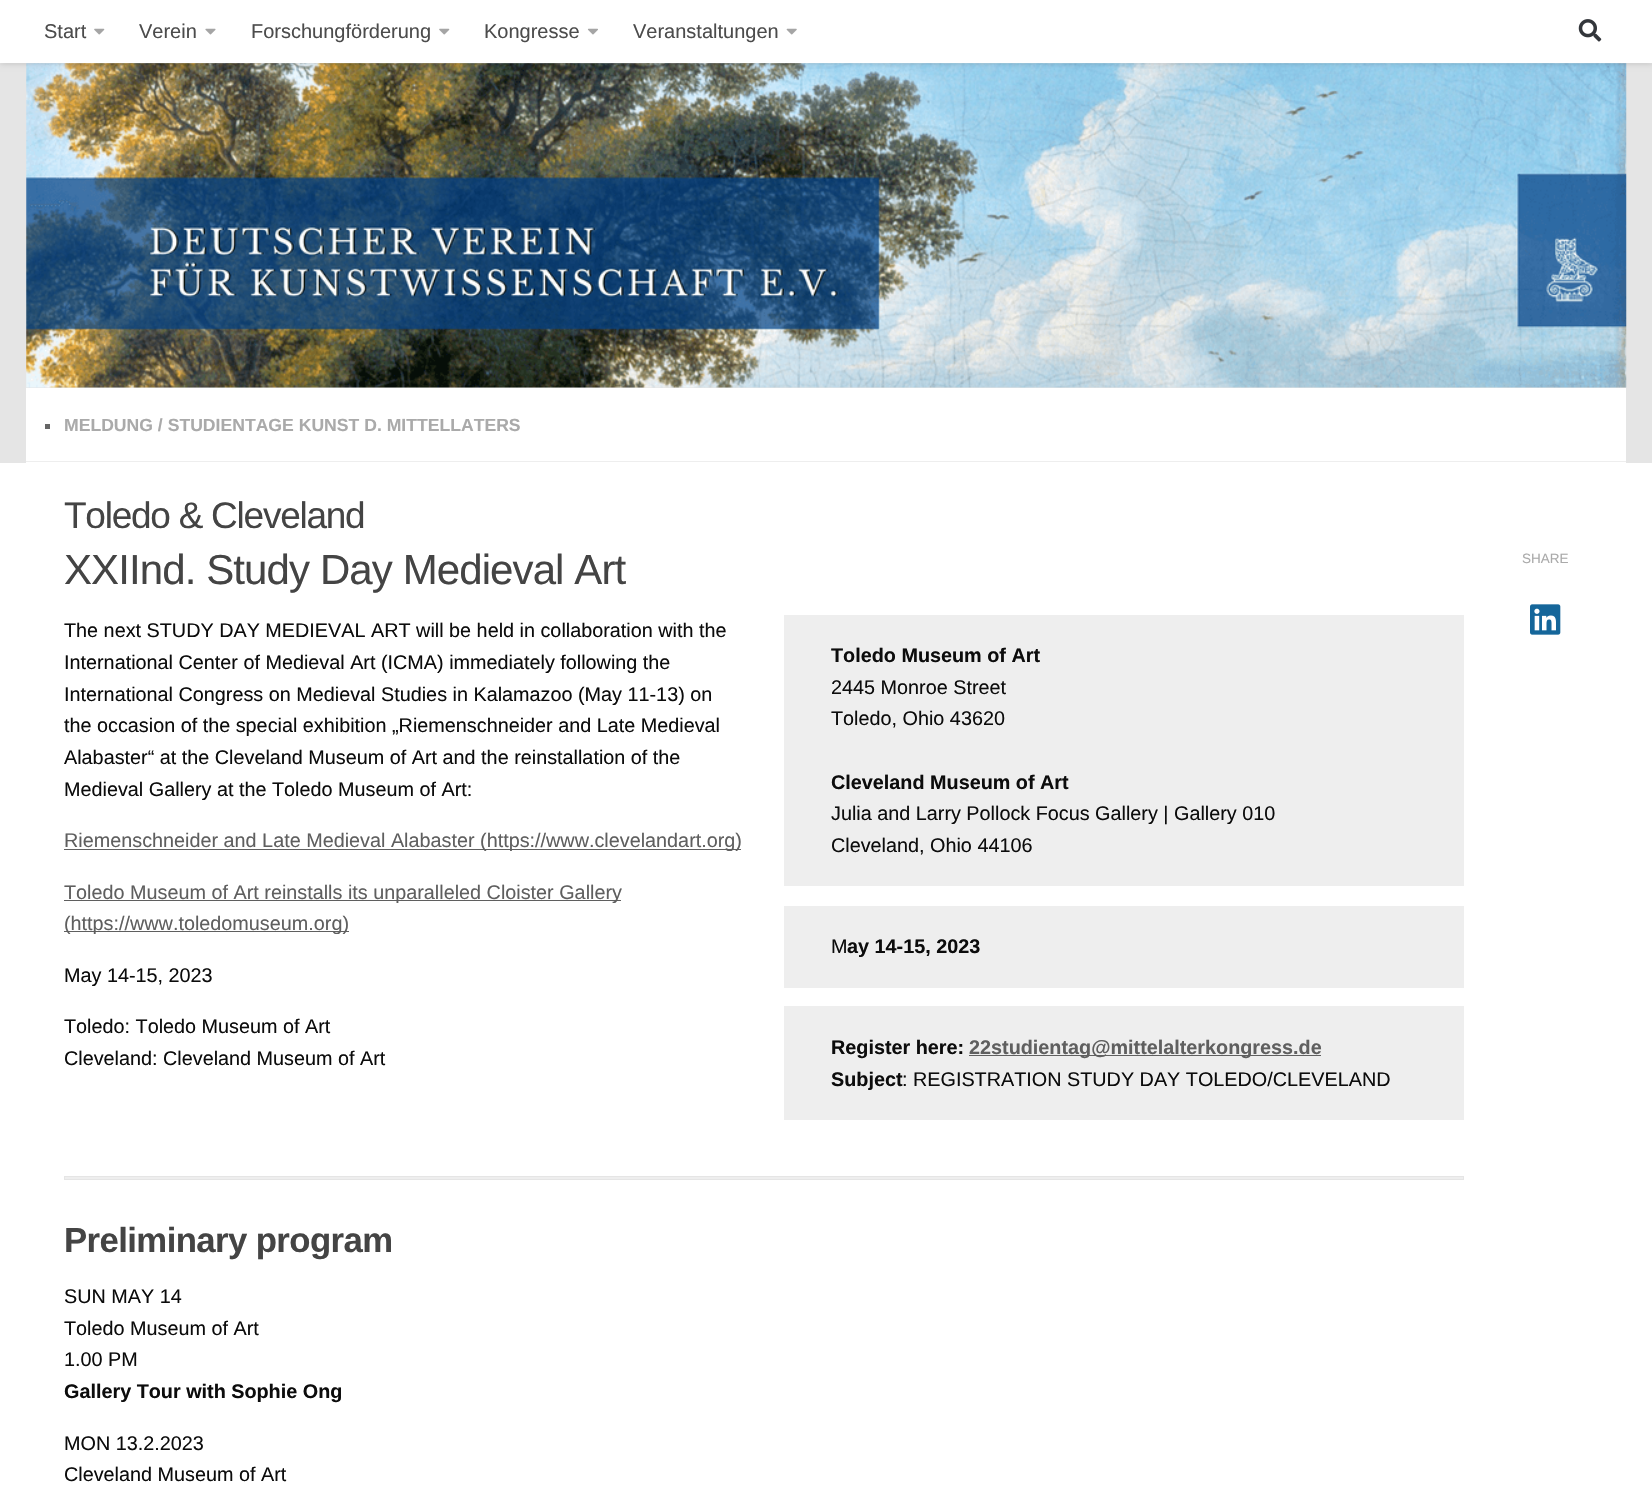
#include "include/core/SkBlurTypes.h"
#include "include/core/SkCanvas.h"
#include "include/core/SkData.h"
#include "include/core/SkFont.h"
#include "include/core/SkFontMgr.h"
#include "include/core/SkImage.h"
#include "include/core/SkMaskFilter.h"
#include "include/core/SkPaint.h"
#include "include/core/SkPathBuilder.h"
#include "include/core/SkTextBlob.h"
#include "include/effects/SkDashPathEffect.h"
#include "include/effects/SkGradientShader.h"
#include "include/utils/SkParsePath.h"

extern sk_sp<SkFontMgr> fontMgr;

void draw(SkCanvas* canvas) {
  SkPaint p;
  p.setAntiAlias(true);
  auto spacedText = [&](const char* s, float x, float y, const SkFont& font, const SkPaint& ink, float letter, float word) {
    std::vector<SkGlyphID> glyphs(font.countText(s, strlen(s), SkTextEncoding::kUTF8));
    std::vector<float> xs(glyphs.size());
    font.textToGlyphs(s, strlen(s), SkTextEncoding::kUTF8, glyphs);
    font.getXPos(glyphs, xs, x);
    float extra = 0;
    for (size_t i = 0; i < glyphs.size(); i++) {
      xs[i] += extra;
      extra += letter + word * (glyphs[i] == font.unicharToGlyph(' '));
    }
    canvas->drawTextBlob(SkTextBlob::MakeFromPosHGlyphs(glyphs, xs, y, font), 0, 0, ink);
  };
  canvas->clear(SK_ColorWHITE);
  p.setColor(SkColorSetARGB(26, 0, 0, 0));
  canvas->drawRect(SkRect::MakeLTRB(0, 63, 1652, 463), p);
  canvas->drawImageRect(SkImages::DeferredFromEncodedData(SkData::MakeFromFileName("images/6.png")), SkRect::MakeLTRB(26, 63, 1627, 388), SkSamplingOptions());
  p.setColor(SkColorSetARGB(38, 255, 255, 255));
  canvas->drawPath(SkPathBuilder().moveTo(0, 62).lineTo(0, 64).lineTo(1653, 64).lineTo(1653, 1).lineTo(1652, 1).lineTo(1652, 62).close().detach(), p);
  p.setColor(SkColorSetARGB(51, 0, 0, 0));
  p.setMaskFilter(SkMaskFilter::MakeBlur(kNormal_SkBlurStyle, 3));
  canvas->drawRect(SkRect::MakeLTRB(0, 0, 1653, 63), p);
  p.setMaskFilter(nullptr);
  p.setColor(SK_ColorWHITE);
  canvas->drawRect(SkRect::MakeLTRB(0, 0, 1652, 63), p);
  canvas->drawImageRect(SkImages::DeferredFromEncodedData(SkData::MakeFromFileName("images/1.png")), SkRect::MakeLTRB(94, 28, 105, 35), SkSamplingOptions());
  canvas->drawImageRect(SkImages::DeferredFromEncodedData(SkData::MakeFromFileName("images/2.png")), SkRect::MakeLTRB(205, 28, 216, 35), SkSamplingOptions());
  canvas->drawImageRect(SkImages::DeferredFromEncodedData(SkData::MakeFromFileName("images/1.png")), SkRect::MakeLTRB(439, 28, 450, 35), SkSamplingOptions());
  canvas->drawImageRect(SkImages::DeferredFromEncodedData(SkData::MakeFromFileName("images/3.png")), SkRect::MakeLTRB(587, 28, 598, 35), SkSamplingOptions());
  canvas->drawImageRect(SkImages::DeferredFromEncodedData(SkData::MakeFromFileName("images/4.png")), SkRect::MakeLTRB(786, 28, 797, 35), SkSamplingOptions());
  canvas->drawImageRect(SkImages::DeferredFromEncodedData(SkData::MakeFromFileName("images/5.png")), SkRect::MakeLTRB(1578, 19, 1602, 42), SkSamplingOptions());
  canvas->drawRect(SkRect::MakeLTRB(26, 388, 1626, 463), p);
  p.setColor(SkColorSetRGB(238, 238, 238));
  canvas->drawRect(SkRect::MakeLTRB(26, 461, 1626, 462), p);
  p.setColor(SkColorSetRGB(102, 102, 102));
  canvas->drawRect(SkRect::MakeLTRB(45, 424, 50, 429), p);
  p.setColor(SkColorSetRGB(95, 95, 95));
  canvas->drawRect(SkRect::MakeLTRB(64, 849, 741, 850), p);
  canvas->drawRect(SkRect::MakeLTRB(64, 900, 621, 901), p);
  canvas->drawRect(SkRect::MakeLTRB(64, 931, 349, 932), p);
  p.setColor(SkColorSetRGB(238, 238, 238));
  canvas->drawRect(SkRect::MakeLTRB(784, 615, 1464, 886), p);
  canvas->drawRect(SkRect::MakeLTRB(784, 906, 1464, 988), p);
  canvas->drawRect(SkRect::MakeLTRB(784, 1006, 1464, 1120), p);
  p.setColor(SkColorSetRGB(95, 95, 95));
  canvas->drawRect(SkRect::MakeLTRB(969, 1055, 1321, 1056), p);
  p.setColor(SkColorSetRGB(238, 238, 238));
  canvas->drawRect(SkRect::MakeLTRB(64.5f, 1176.5f, 1463.5f, 1179.5f), p);
  p.setStyle(SkPaint::kStroke_Style);
  p.setStrokeWidth(1);
  p.setColor(SkColorSetRGB(229, 229, 229));
  canvas->drawRect(SkRect::MakeLTRB(64.5f, 1176.5f, 1463.5f, 1179.5f), p);
  canvas->drawImageRect(SkImages::DeferredFromEncodedData(SkData::MakeFromFileName("images/7.png")), SkRect::MakeLTRB(1530, 604, 1561, 635), SkSamplingOptions());
  SkFont font1(fontMgr->matchFamilyStyle("Liberation Sans", SkFontStyle::Normal()), 20);
  font1.setSubpixel(true);
  p.setStyle(SkPaint::kFill_Style);
  p.setColor(SkColorSetRGB(76, 76, 76));
  canvas->drawString("Start", 44, 38, font1, p);
  canvas->drawString("Verein", 139, 38, font1, p);
  canvas->drawString("Forschungförderung", 251, 38, font1, p);
  canvas->drawString("Kongresse", 484, 38, font1, p);
  canvas->drawString("Veranstaltungen", 633, 38, font1, p);
  SkFont font2(fontMgr->matchFamilyStyle("Liberation Sans", SkFontStyle::Bold()), 17.6f);
  font2.setSubpixel(true);
  p.setColor(SkColorSetRGB(170, 170, 170));
  canvas->drawString("MELDUNG / STUDIENTAGE KUNST D. MITTELLATERS", 64, 431, font2, p);
  SkFont font3(fontMgr->matchFamilyStyle("Liberation Sans", SkFontStyle::Normal()), 37);
  font3.setSubpixel(true);
  p.setColor(SkColorSetRGB(68, 68, 68));
  spacedText("Toledo & Cleveland", 64, 528, font3, p, -1.25f, 0);
  SkFont font4(fontMgr->matchFamilyStyle("Liberation Sans", SkFontStyle::Normal()), 42);
  font4.setSubpixel(true);
  spacedText("XXIInd. Study Day Medieval Art", 64, 584, font4, p, -0.9f, 0);
  SkFont font5(fontMgr->matchFamilyStyle("Liberation Sans", SkFontStyle::Normal()), 19.8f);
  font5.setSubpixel(true);
  p.setColor(SkColorSetRGB(12, 12, 12));
  canvas->drawString("The next STUDY DAY MEDIEVAL ART will be held in collaboration with the", 64, 637, font5, p);
  canvas->drawString("International Center of Medieval Art (ICMA) immediately following the", 64, 669, font5, p);
  canvas->drawString("International Congress on Medieval Studies in Kalamazoo (May 11-13) on", 64, 701, font5, p);
  canvas->drawString("the occasion of the special exhibition „Riemenschneider and Late Medieval", 64, 732, font5, p);
  canvas->drawString("Alabaster“ at the Cleveland Museum of Art and the reinstallation of the", 64, 764, font5, p);
  canvas->drawString("Medieval Gallery at the Toledo Museum of Art:", 64, 796, font5, p);
  p.setColor(SkColorSetRGB(95, 95, 95));
  canvas->drawString("Riemenschneider and Late Medieval Alabaster (https://www.clevelandart.org)", 64, 847, font5, p);
  canvas->drawString("Toledo Museum of Art reinstalls its unparalleled Cloister Gallery", 64, 899, font5, p);
  canvas->drawString("(https://www.toledomuseum.org)", 64, 930, font5, p);
  p.setColor(SkColorSetRGB(12, 12, 12));
  canvas->drawString("May 14-15, 2023", 64, 982, font5, p);
  canvas->drawString("Toledo: Toledo Museum of Art", 64, 1033, font5, p);
  canvas->drawString("Cleveland: Cleveland Museum of Art", 64, 1065, font5, p);
  SkFont font6(fontMgr->matchFamilyStyle("Liberation Sans", SkFontStyle::Bold()), 19.8f);
  font6.setSubpixel(true);
  canvas->drawString("Toledo Museum of Art", 831, 662, font6, p);
  canvas->drawString("2445 Monroe Street", 831, 694, font5, p);
  canvas->drawString("Toledo, Ohio 43620", 831, 725, font5, p);
  canvas->drawString("Cleveland Museum of Art", 831, 789, font6, p);
  canvas->drawString("Julia and Larry Pollock Focus Gallery | Gallery 010", 831, 820, font5, p);
  canvas->drawString("Cleveland, Ohio 44106", 831, 852, font5, p);
  canvas->drawString("M", 831, 953, font5, p);
  canvas->drawString("ay 14-15, 2023", 847, 953, font6, p);
  canvas->drawString("Register here:", 831, 1054, font6, p);
  p.setColor(SkColorSetRGB(95, 95, 95));
  canvas->drawString("22studientag@mittelalterkongress.de", 969, 1054, font6, p);
  p.setColor(SkColorSetRGB(12, 12, 12));
  canvas->drawString("Subject", 831, 1086, font6, p);
  canvas->drawString(": REGISTRATION STUDY DAY TOLEDO/CLEVELAND", 902, 1086, font5, p);
  SkFont font7(fontMgr->matchFamilyStyle("Liberation Sans", SkFontStyle::Bold()), 34.75f);
  font7.setSubpixel(true);
  p.setColor(SkColorSetRGB(68, 68, 68));
  spacedText("Preliminary program", 64, 1252, font7, p, -0.6f, 0);
  p.setColor(SkColorSetRGB(12, 12, 12));
  canvas->drawString("SUN MAY 14", 64, 1303, font5, p);
  canvas->drawString("Toledo Museum of Art", 64, 1335, font5, p);
  canvas->drawString("1.00 PM", 64, 1366, font5, p);
  canvas->drawString("Gallery Tour with Sophie Ong", 64, 1398, font6, p);
  canvas->drawString("MON 13.2.2023", 64, 1450, font5, p);
  canvas->drawString("Cleveland Museum of Art", 64, 1481, font5, p);
  SkFont font8(fontMgr->matchFamilyStyle("Liberation Sans", SkFontStyle::Normal()), 13.5f);
  font8.setSubpixel(true);
  p.setColor(SkColorSetRGB(170, 170, 170));
  canvas->drawString("SHARE", 1522, 563, font8, p);
}
